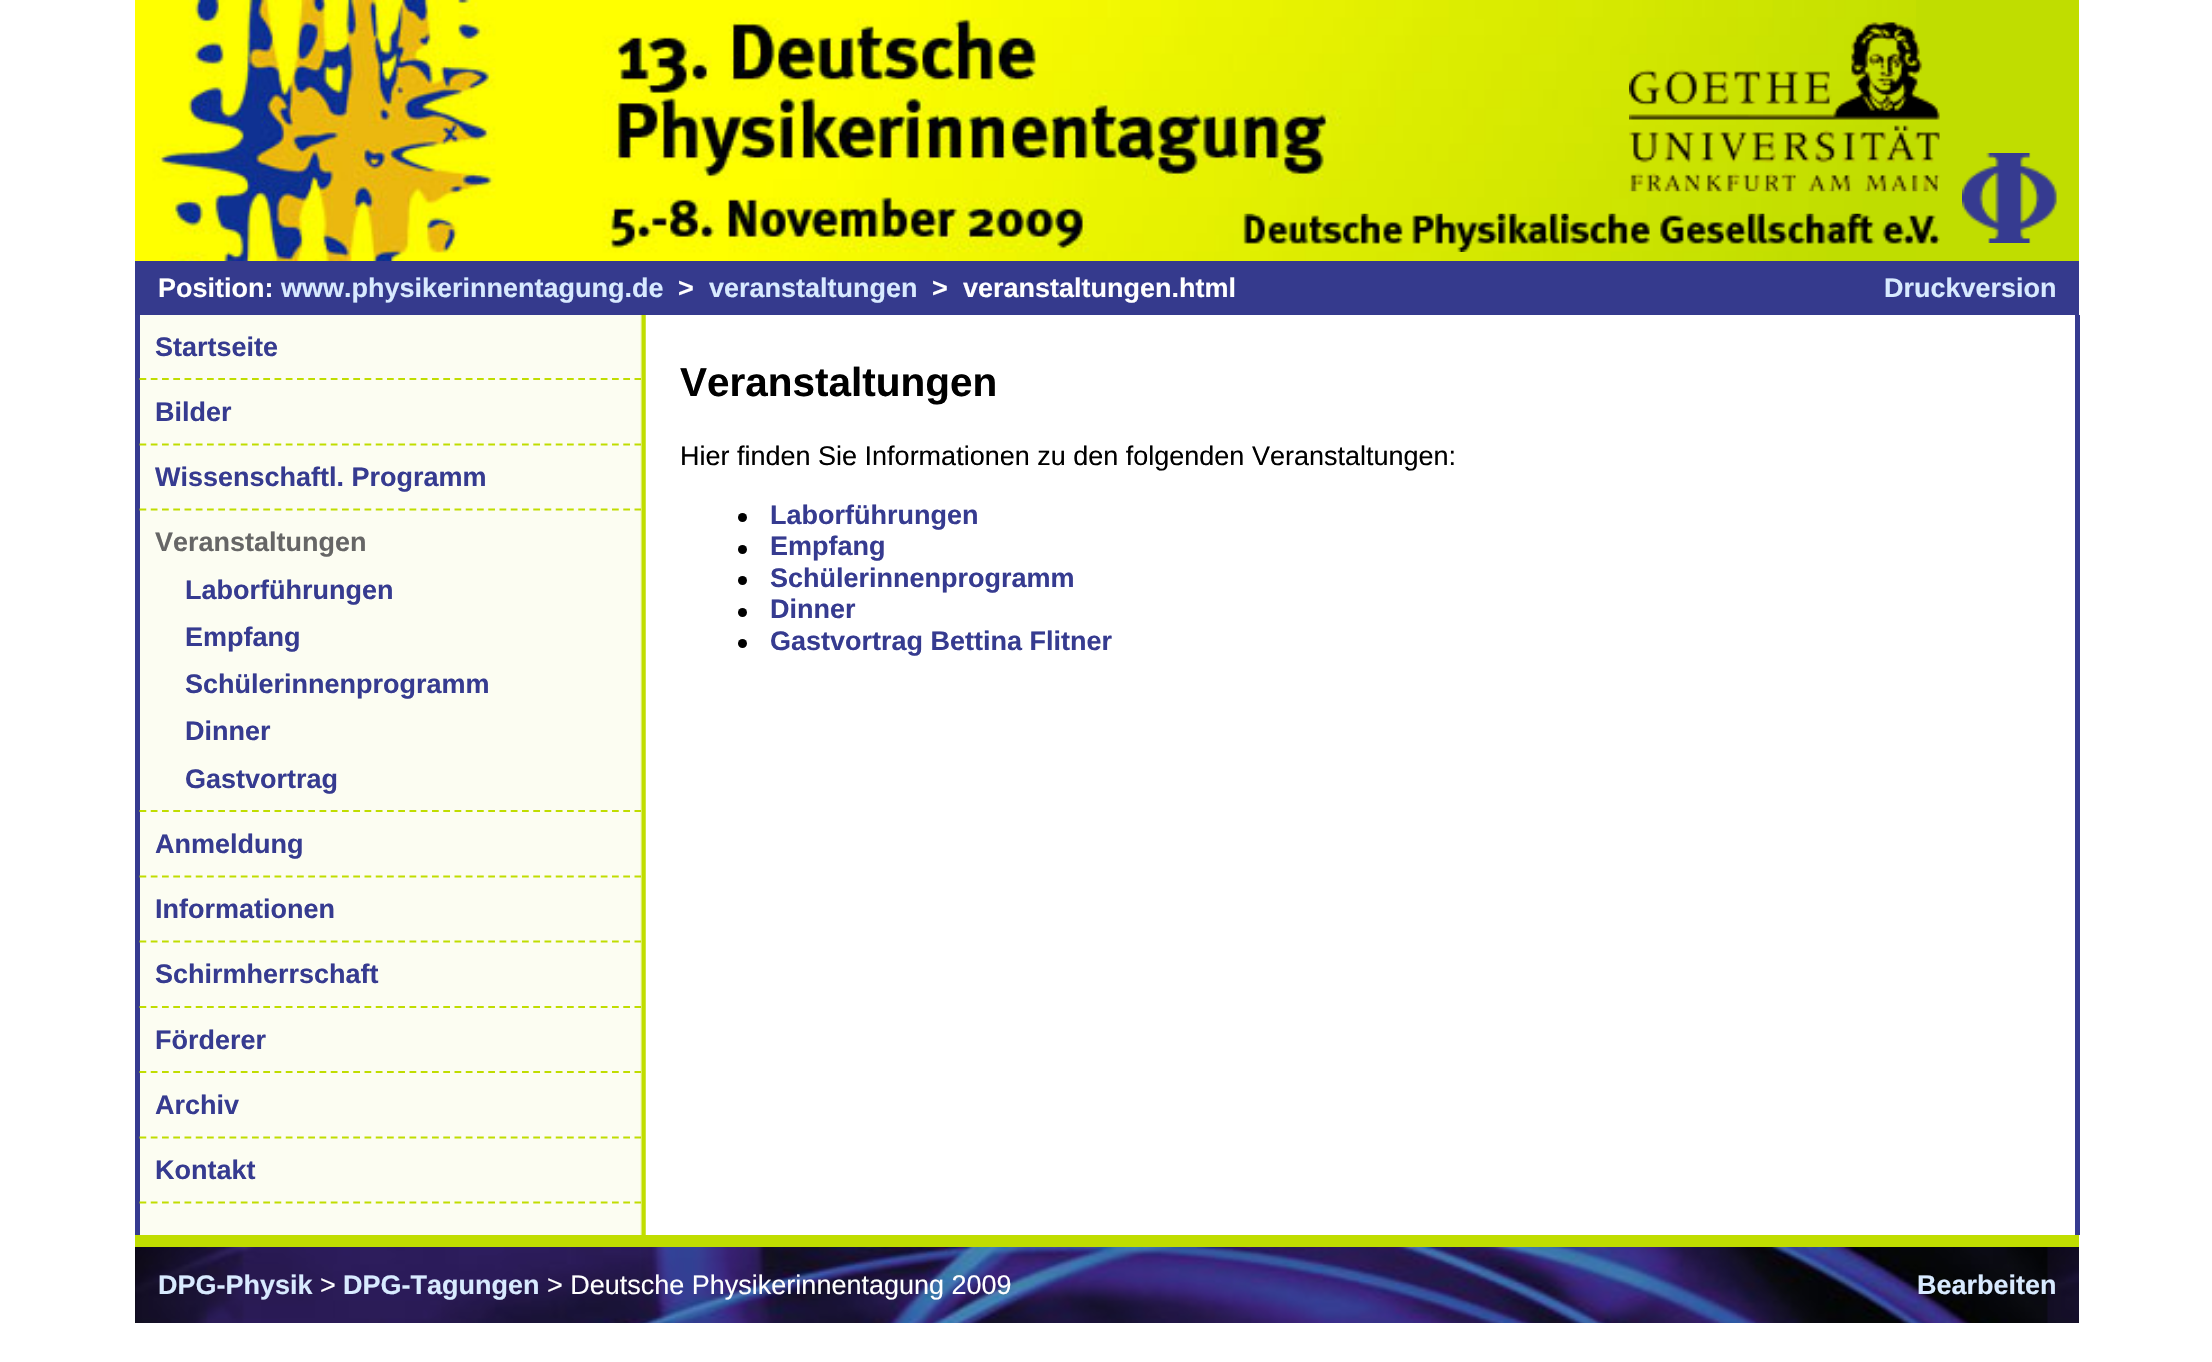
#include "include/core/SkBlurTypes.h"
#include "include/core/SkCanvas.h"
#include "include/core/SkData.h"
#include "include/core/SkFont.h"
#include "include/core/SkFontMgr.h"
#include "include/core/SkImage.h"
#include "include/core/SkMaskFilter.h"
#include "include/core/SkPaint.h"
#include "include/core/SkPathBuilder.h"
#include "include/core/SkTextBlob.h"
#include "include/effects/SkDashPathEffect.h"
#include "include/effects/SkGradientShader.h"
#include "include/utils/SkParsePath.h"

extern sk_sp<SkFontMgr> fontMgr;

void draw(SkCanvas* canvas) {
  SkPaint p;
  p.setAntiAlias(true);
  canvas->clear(SK_ColorWHITE);
  p.setColor(SkColorSetRGB(192, 221, 0));
  canvas->drawRect(SkRect::MakeLTRB(1916, 0, 2079, 261), p);
  canvas->drawImageRect(SkImages::DeferredFromEncodedData(SkData::MakeFromFileName("images/1.png")), SkRect::MakeLTRB(135, 0, 1916, 261), SkSamplingOptions());
  canvas->drawImageRect(SkImages::DeferredFromEncodedData(SkData::MakeFromFileName("images/2.png")), SkRect::MakeLTRB(1629, 22, 1940, 192), SkSamplingOptions());
  canvas->drawImageRect(SkImages::DeferredFromEncodedData(SkData::MakeFromFileName("images/3.png")), SkRect::MakeLTRB(1962, 153, 2057, 243), SkSamplingOptions());
  canvas->drawImageRect(SkImages::DeferredFromEncodedData(SkData::MakeFromFileName("images/4.png")), SkRect::MakeLTRB(1243, 213, 1940, 252), SkSamplingOptions());
  p.setColor(SkColorSetRGB(53, 58, 141));
  canvas->drawRect(SkRect::MakeLTRB(135, 261, 2079, 315), p);
  canvas->drawImageRect(SkImages::DeferredFromEncodedData(SkData::MakeFromFileName("images/5.png")), SkRect::MakeLTRB(140, 315, 646, 1235), SkSamplingOptions());
  p.setColor(SkColorSetRGB(54, 59, 144));
  canvas->drawRect(SkRect::MakeLTRB(2075, 315, 2080, 1235), p);
  canvas->drawRect(SkRect::MakeLTRB(135, 315, 140, 1235), p);
  p.setStyle(SkPaint::kStroke_Style);
  p.setStrokeWidth(2.2f);
  p.setColor(SkColorSetRGB(192, 221, 0));
  p.setPathEffect(SkDashPathEffect::Make({{6.75f, 4.5f}}, 0));
  canvas->drawPath(SkPathBuilder().moveTo(139.5f, 379).lineTo(641, 379).detach(), p);
  p.setPathEffect(nullptr);
  p.setPathEffect(SkDashPathEffect::Make({{6.75f, 4.5f}}, 0));
  canvas->drawPath(SkPathBuilder().moveTo(139.5f, 444.5f).lineTo(641, 444.5f).detach(), p);
  p.setPathEffect(nullptr);
  p.setPathEffect(SkDashPathEffect::Make({{6.75f, 4.5f}}, 0));
  canvas->drawPath(SkPathBuilder().moveTo(139.5f, 509.5f).lineTo(641, 509.5f).detach(), p);
  p.setPathEffect(nullptr);
  p.setPathEffect(SkDashPathEffect::Make({{6.75f, 4.5f}}, 0));
  canvas->drawPath(SkPathBuilder().moveTo(139.5f, 811).lineTo(641, 811).detach(), p);
  p.setPathEffect(nullptr);
  p.setPathEffect(SkDashPathEffect::Make({{6.75f, 4.5f}}, 0));
  canvas->drawPath(SkPathBuilder().moveTo(139.5f, 876.5f).lineTo(641, 876.5f).detach(), p);
  p.setPathEffect(nullptr);
  p.setPathEffect(SkDashPathEffect::Make({{6.75f, 4.5f}}, 0));
  canvas->drawPath(SkPathBuilder().moveTo(139.5f, 941.5f).lineTo(641, 941.5f).detach(), p);
  p.setPathEffect(nullptr);
  p.setPathEffect(SkDashPathEffect::Make({{6.75f, 4.5f}}, 0));
  canvas->drawPath(SkPathBuilder().moveTo(139.5f, 1007).lineTo(641, 1007).detach(), p);
  p.setPathEffect(nullptr);
  p.setPathEffect(SkDashPathEffect::Make({{6.75f, 4.5f}}, 0));
  canvas->drawPath(SkPathBuilder().moveTo(139.5f, 1072).lineTo(641, 1072).detach(), p);
  p.setPathEffect(nullptr);
  p.setPathEffect(SkDashPathEffect::Make({{6.75f, 4.5f}}, 0));
  canvas->drawPath(SkPathBuilder().moveTo(139.5f, 1137.5f).lineTo(641, 1137.5f).detach(), p);
  p.setPathEffect(nullptr);
  p.setPathEffect(SkDashPathEffect::Make({{6.75f, 4.5f}}, 0));
  canvas->drawPath(SkPathBuilder().moveTo(139.5f, 1202.5f).lineTo(641, 1202.5f).detach(), p);
  p.setPathEffect(nullptr);
  p.setStyle(SkPaint::kFill_Style);
  p.setColor(SK_ColorBLACK);
  canvas->drawCircle(742.5f, 517.5f, 4.5f, p);
  canvas->drawCircle(742.5f, 549.5f, 4.5f, p);
  canvas->drawCircle(742.5f, 580.5f, 4.5f, p);
  canvas->drawCircle(742.5f, 612.5f, 4.5f, p);
  canvas->drawCircle(742.5f, 643.5f, 4.5f, p);
  canvas->drawImageRect(SkImages::DeferredFromEncodedData(SkData::MakeFromFileName("images/6.png")), SkRect::MakeLTRB(135, 1247, 2079, 1323), SkSamplingOptions());
  p.setColor(SkColorSetRGB(192, 221, 0));
  canvas->drawRect(SkRect::MakeLTRB(135, 1235, 2079, 1247), p);
  SkFont font1(fontMgr->matchFamilyStyle("Liberation Sans", SkFontStyle::Bold()), 27);
  font1.setSubpixel(true);
  p.setColor(SK_ColorWHITE);
  canvas->drawString("Position:", 158, 297, font1, p);
  p.setColor(SkColorSetRGB(216, 234, 255));
  canvas->drawString("www.physikerinnentagung.de", 281, 297, font1, p);
  p.setColor(SK_ColorWHITE);
  canvas->drawString(">", 678, 297, font1, p);
  p.setColor(SkColorSetRGB(216, 234, 255));
  canvas->drawString("veranstaltungen", 709, 297, font1, p);
  p.setColor(SK_ColorWHITE);
  canvas->drawString(">", 932, 297, font1, p);
  canvas->drawString("veranstaltungen.html", 963, 297, font1, p);
  p.setColor(SkColorSetRGB(216, 234, 255));
  canvas->drawString("Druckversion", 1884, 297, font1, p);
  p.setColor(SkColorSetRGB(54, 59, 144));
  canvas->drawString("Startseite", 155, 356, font1, p);
  canvas->drawString("Bilder", 155, 421, font1, p);
  canvas->drawString("Wissenschaftl. Programm", 155, 486, font1, p);
  p.setColor(SkColorSetRGB(102, 102, 102));
  canvas->drawString("Veranstaltungen", 155, 551, font1, p);
  p.setColor(SkColorSetRGB(54, 59, 144));
  canvas->drawString("Laborführungen", 185, 599, font1, p);
  canvas->drawString("Empfang", 185, 646, font1, p);
  canvas->drawString("Schülerinnenprogramm", 185, 693, font1, p);
  canvas->drawString("Dinner", 185, 740, font1, p);
  canvas->drawString("Gastvortrag", 185, 788, font1, p);
  canvas->drawString("Anmeldung", 155, 853, font1, p);
  canvas->drawString("Informationen", 155, 918, font1, p);
  canvas->drawString("Schirmherrschaft", 155, 983, font1, p);
  canvas->drawString("Förderer", 155, 1049, font1, p);
  canvas->drawString("Archiv", 155, 1114, font1, p);
  canvas->drawString("Kontakt", 155, 1179, font1, p);
  SkFont font2(fontMgr->matchFamilyStyle("Liberation Sans", SkFontStyle::Bold()), 40.5f);
  font2.setSubpixel(true);
  p.setColor(SK_ColorBLACK);
  canvas->drawString("Veranstaltungen", 680, 396, font2, p);
  SkFont font3(fontMgr->matchFamilyStyle("Liberation Sans", SkFontStyle::Normal()), 27);
  font3.setSubpixel(true);
  canvas->drawString("Hier finden Sie Informationen zu den folgenden Veranstaltungen:", 680, 465, font3, p);
  p.setColor(SkColorSetRGB(54, 59, 144));
  canvas->drawString("Laborführungen", 770, 524, font1, p);
  canvas->drawString("Empfang", 770, 555, font1, p);
  canvas->drawString("Schülerinnenprogramm", 770, 587, font1, p);
  canvas->drawString("Dinner", 770, 618, font1, p);
  canvas->drawString("Gastvortrag Bettina Flitner", 770, 650, font1, p);
  p.setColor(SkColorSetRGB(216, 234, 255));
  canvas->drawString("DPG-Physik", 158, 1294, font1, p);
  p.setColor(SK_ColorWHITE);
  canvas->drawString(">", 320, 1294, font3, p);
  p.setColor(SkColorSetRGB(216, 234, 255));
  canvas->drawString("DPG-Tagungen", 343, 1294, font1, p);
  p.setColor(SK_ColorWHITE);
  canvas->drawString("> Deutsche Physikerinnentagung 2009", 547, 1294, font3, p);
  p.setColor(SkColorSetRGB(216, 234, 255));
  canvas->drawString("Bearbeiten", 1917, 1294, font1, p);
}
